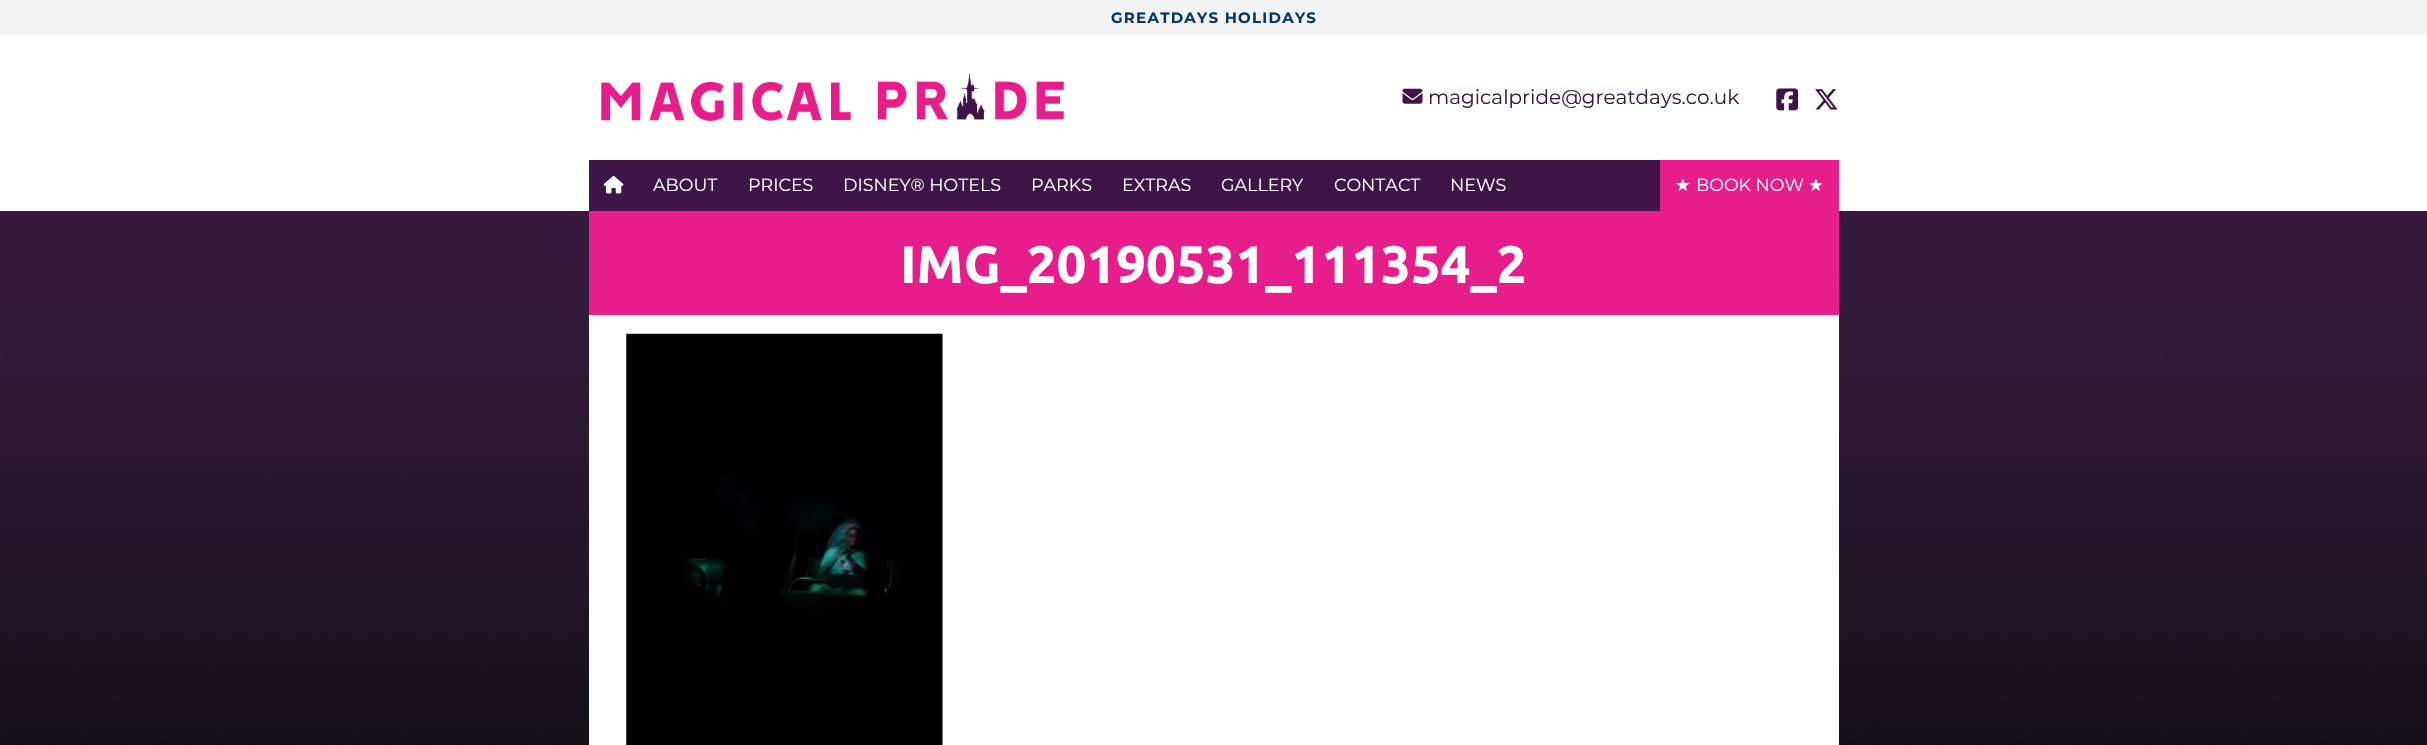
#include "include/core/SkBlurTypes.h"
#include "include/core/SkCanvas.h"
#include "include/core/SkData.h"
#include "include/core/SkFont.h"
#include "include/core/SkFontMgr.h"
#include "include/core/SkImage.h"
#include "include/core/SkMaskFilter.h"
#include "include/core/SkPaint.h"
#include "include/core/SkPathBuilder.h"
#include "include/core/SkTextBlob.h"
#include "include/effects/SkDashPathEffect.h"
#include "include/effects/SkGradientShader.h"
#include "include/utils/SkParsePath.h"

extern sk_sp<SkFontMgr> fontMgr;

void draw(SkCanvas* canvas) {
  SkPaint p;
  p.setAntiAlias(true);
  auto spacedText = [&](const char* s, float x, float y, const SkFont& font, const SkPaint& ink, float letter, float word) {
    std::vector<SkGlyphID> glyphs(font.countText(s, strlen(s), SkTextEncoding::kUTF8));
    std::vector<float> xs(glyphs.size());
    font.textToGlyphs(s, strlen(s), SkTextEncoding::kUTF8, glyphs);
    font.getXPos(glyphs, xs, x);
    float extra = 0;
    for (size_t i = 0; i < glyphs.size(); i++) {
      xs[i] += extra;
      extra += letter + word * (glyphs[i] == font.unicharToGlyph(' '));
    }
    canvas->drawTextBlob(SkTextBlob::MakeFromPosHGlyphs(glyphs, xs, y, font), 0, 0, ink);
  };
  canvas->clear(SK_ColorWHITE);
  canvas->drawImageRect(SkImages::DeferredFromEncodedData(SkData::MakeFromFileName("images/1.png")), SkRect::MakeLTRB(0, 211, 2427, 745), SkSamplingOptions());
  p.setColor(SkColorSetRGB(242, 242, 242));
  canvas->drawRect(SkRect::MakeLTRB(0, 0, 2427, 35), p);
  canvas->drawImageRect(SkImages::DeferredFromEncodedData(SkData::MakeFromFileName("images/2.png")), SkRect::MakeLTRB(601, 74, 1064, 121), SkSamplingOptions());
  canvas->drawImageRect(SkImages::DeferredFromEncodedData(SkData::MakeFromFileName("images/3.png")), SkRect::MakeLTRB(1402, 88, 1423, 104), SkSamplingOptions());
  canvas->drawImageRect(SkImages::DeferredFromEncodedData(SkData::MakeFromFileName("images/4.png")), SkRect::MakeLTRB(1776, 88, 1799, 111), SkSamplingOptions());
  canvas->drawImageRect(SkImages::DeferredFromEncodedData(SkData::MakeFromFileName("images/5.png")), SkRect::MakeLTRB(1815, 89, 1838, 110), SkSamplingOptions());
  p.setColor(SkColorSetRGB(63, 21, 73));
  canvas->drawRect(SkRect::MakeLTRB(589, 160, 1660, 211), p);
  canvas->drawImageRect(SkImages::DeferredFromEncodedData(SkData::MakeFromFileName("images/6.png")), SkRect::MakeLTRB(603, 176, 624, 194), SkSamplingOptions());
  p.setColor(SkColorSetRGB(230, 29, 139));
  canvas->drawRect(SkRect::MakeLTRB(1660, 160, 1839, 211), p);
  p.setColor(SK_ColorWHITE);
  canvas->drawRect(SkRect::MakeLTRB(589, 315, 1839, 745), p);
  p.setColor(SkColorSetRGB(230, 29, 139));
  canvas->drawRect(SkRect::MakeLTRB(589, 211, 1839, 315), p);
  canvas->drawImageRect(SkImages::DeferredFromEncodedData(SkData::MakeFromFileName("images/7.png")), SkRect::MakeLTRB(626, 333, 943, 745), SkSamplingOptions());
  SkFont font1(fontMgr->matchFamilyStyle("Montserrat", SkFontStyle::Bold()), 15);
  font1.setSubpixel(true);
  p.setColor(SkColorSetRGB(0, 58, 100));
  spacedText("GREATDAYS HOLIDAYS", 1111, 23, font1, p, 1.25f, 0);
  SkFont font2(fontMgr->matchFamilyStyle("Montserrat", SkFontStyle::Normal()), 20);
  font2.setSubpixel(true);
  p.setColor(SkColorSetRGB(63, 21, 73));
  canvas->drawString("magicalpride@greatdays.co.uk", 1428, 104, font2, p);
  SkFont font3(fontMgr->matchFamilyStyle("Montserrat", SkFontStyle::Normal()), 17.5f);
  font3.setSubpixel(true);
  p.setColor(SK_ColorWHITE);
  canvas->drawString("ABOUT", 653, 191, font3, p);
  canvas->drawString("PRICES", 748, 191, font3, p);
  canvas->drawString("DISNEY® HOTELS", 843, 191, font3, p);
  canvas->drawString("PARKS", 1031, 191, font3, p);
  canvas->drawString("EXTRAS", 1122, 191, font3, p);
  canvas->drawString("GALLERY", 1221, 191, font3, p);
  canvas->drawString("CONTACT", 1334, 191, font3, p);
  canvas->drawString("NEWS", 1450, 191, font3, p);
  SkFont font4(fontMgr->matchFamilyStyle("DejaVu Sans", SkFontStyle::Normal()), 17.5f);
  font4.setSubpixel(true);
  canvas->drawString("★", 1675, 191, font4, p);
  canvas->drawString("BOOK NOW", 1696, 191, font3, p);
  canvas->drawString("★", 1808, 191, font4, p);
  SkFont font5(fontMgr->matchFamilyStyle("Ubuntu", SkFontStyle::Bold()), 52.5f);
  font5.setSubpixel(true);
  canvas->drawString("IMG_20190531_111354_2", 900, 283, font5, p);
}
